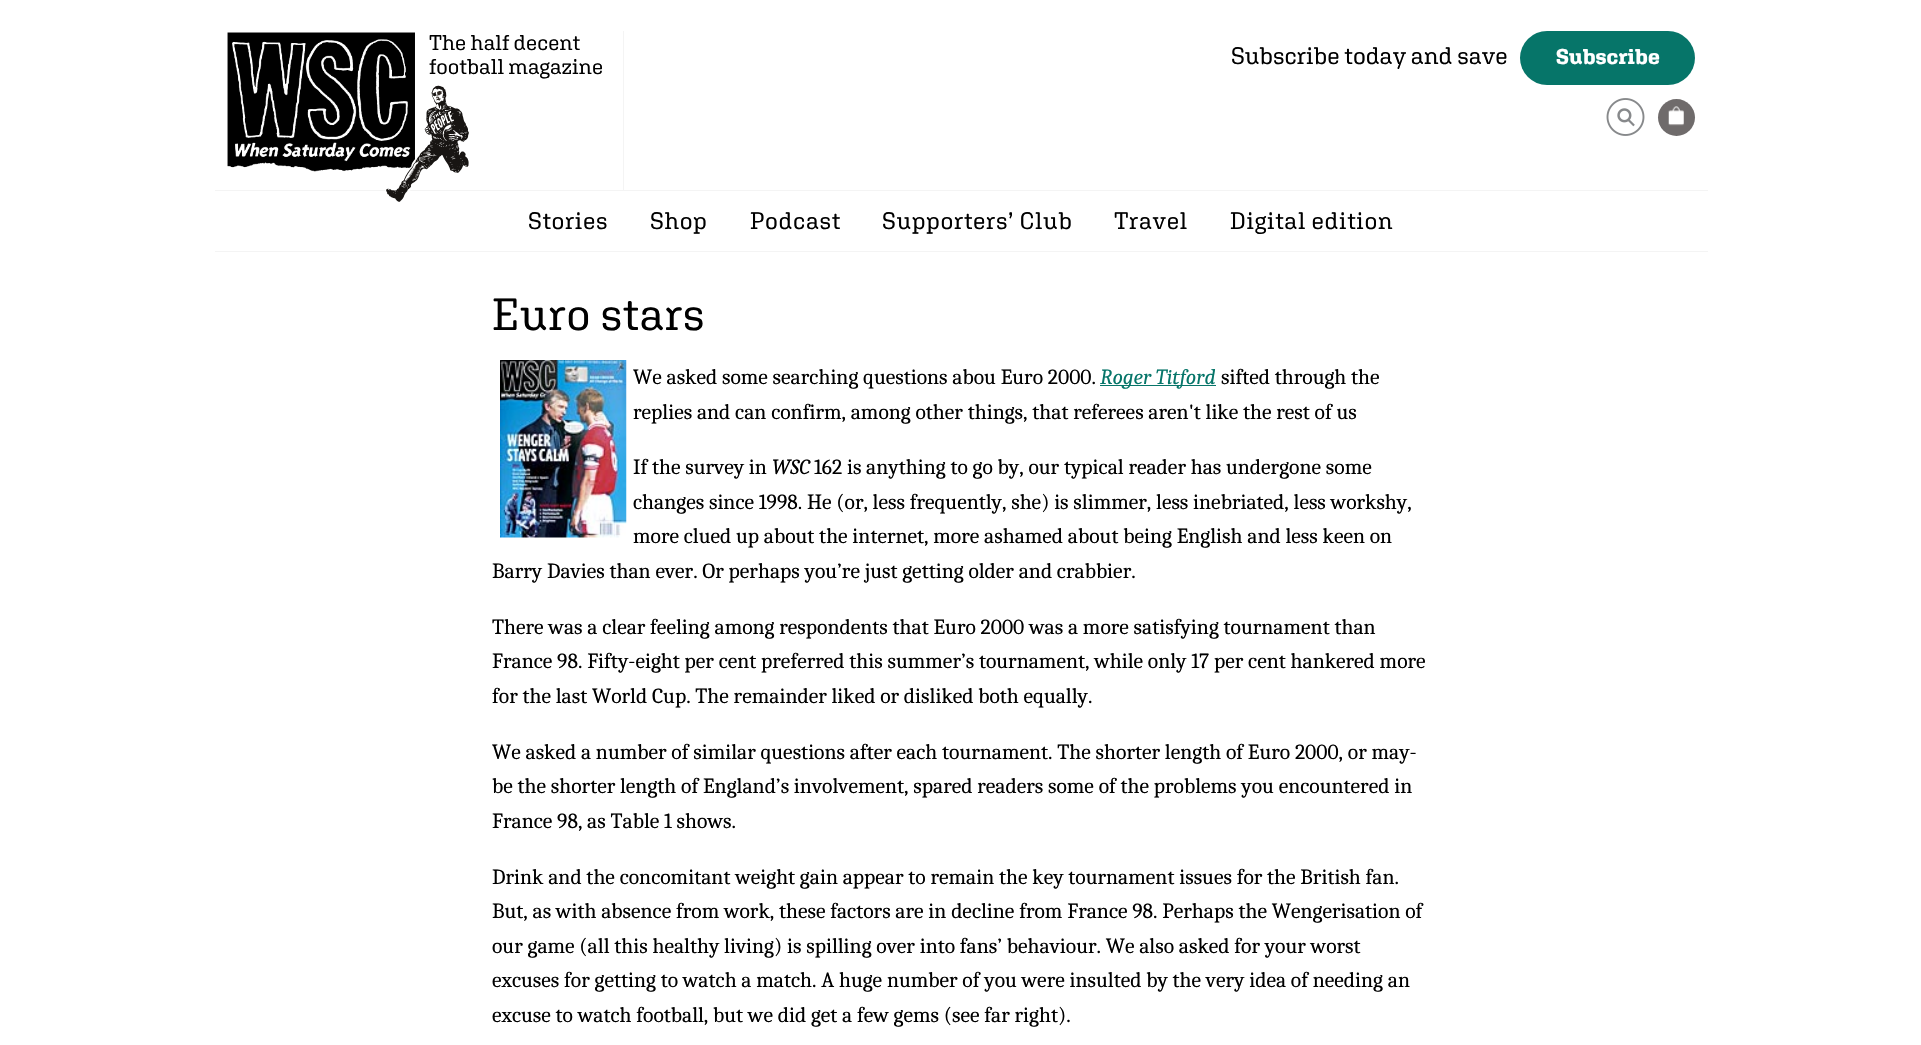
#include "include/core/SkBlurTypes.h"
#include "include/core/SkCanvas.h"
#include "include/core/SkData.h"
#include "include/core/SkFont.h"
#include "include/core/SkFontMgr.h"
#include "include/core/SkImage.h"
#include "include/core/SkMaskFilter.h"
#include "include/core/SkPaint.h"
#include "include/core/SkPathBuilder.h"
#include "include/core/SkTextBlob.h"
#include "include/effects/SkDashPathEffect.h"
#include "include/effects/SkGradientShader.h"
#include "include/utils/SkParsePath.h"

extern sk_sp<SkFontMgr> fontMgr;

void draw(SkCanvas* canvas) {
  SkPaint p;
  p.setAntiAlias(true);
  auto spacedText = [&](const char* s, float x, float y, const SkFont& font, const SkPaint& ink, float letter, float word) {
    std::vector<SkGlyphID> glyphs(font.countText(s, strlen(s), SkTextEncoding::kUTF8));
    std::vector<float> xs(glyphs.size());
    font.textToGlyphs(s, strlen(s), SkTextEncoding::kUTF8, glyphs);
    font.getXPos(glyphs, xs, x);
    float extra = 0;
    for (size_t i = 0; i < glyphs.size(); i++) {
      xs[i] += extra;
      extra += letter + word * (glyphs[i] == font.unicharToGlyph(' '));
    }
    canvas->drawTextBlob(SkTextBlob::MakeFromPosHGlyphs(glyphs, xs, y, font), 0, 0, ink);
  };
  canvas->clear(SK_ColorWHITE);
  canvas->drawImageRect(SkImages::DeferredFromEncodedData(SkData::MakeFromFileName("images/1.png")), SkRect::MakeLTRB(227, 32, 415, 172), SkSamplingOptions());
  p.setColor(SkColorSetRGB(244, 244, 244));
  canvas->drawRect(SkRect::MakeLTRB(623, 31, 624, 190), p);
  canvas->drawRect(SkRect::MakeLTRB(215, 190, 1708, 191), p);
  canvas->drawImageRect(SkImages::DeferredFromEncodedData(SkData::MakeFromFileName("images/2.png")), SkRect::MakeLTRB(385, 85, 469, 202), SkSamplingOptions());
  p.setColor(SkColorSetRGB(6, 117, 105));
  canvas->drawRoundRect(SkRect::MakeLTRB(1520, 31, 1695, 85), 27, 27, p);
  canvas->drawImageRect(SkImages::DeferredFromEncodedData(SkData::MakeFromFileName("images/3.png")), SkRect::MakeLTRB(1606, 98, 1645, 136), SkSamplingOptions());
  p.setColor(SkColorSetRGB(111, 107, 107));
  canvas->drawCircle(1676.5f, 117.5f, 18.5f, p);
  canvas->drawImageRect(SkImages::DeferredFromEncodedData(SkData::MakeFromFileName("images/4.png")), SkRect::MakeLTRB(1668, 106, 1684, 126), SkSamplingOptions());
  p.setColor(SkColorSetRGB(244, 244, 244));
  canvas->drawRect(SkRect::MakeLTRB(215, 251, 1708, 252), p);
  canvas->drawImageRect(SkImages::DeferredFromEncodedData(SkData::MakeFromFileName("images/5.png")), SkRect::MakeLTRB(500, 360, 627, 538), SkSamplingOptions());
  p.setColor(SkColorSetRGB(6, 117, 105));
  canvas->drawRect(SkRect::MakeLTRB(1100, 385, 1216, 386), p);
  SkFont font1(fontMgr->matchFamilyStyle("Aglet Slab", SkFontStyle::Normal()), 21.25f);
  font1.setSubpixel(true);
  p.setColor(SK_ColorBLACK);
  canvas->drawString("The half decent", 429, 50, font1, p);
  canvas->drawString("football magazine", 429, 74, font1, p);
  SkFont font2(fontMgr->matchFamilyStyle("Aglet Slab", SkFontStyle::Normal()), 23.75f);
  font2.setSubpixel(true);
  canvas->drawString("Subscribe today and save", 1231, 64, font2, p);
  SkFont font3(fontMgr->matchFamilyStyle("Aglet Slab", SkFontStyle::Bold()), 21.25f);
  font3.setSubpixel(true);
  p.setColor(SK_ColorWHITE);
  canvas->drawString("Subscribe", 1556, 64, font3, p);
  p.setColor(SK_ColorBLACK);
  spacedText("Stories", 528, 229, font2, p, 0.6f, 0);
  spacedText("Shop", 650, 229, font2, p, 0.6f, 0);
  spacedText("Podcast", 750, 229, font2, p, 0.6f, 0);
  spacedText("Supporters’ Club", 882, 229, font2, p, 0.6f, 0);
  spacedText("Travel", 1114, 229, font2, p, 0.6f, 0);
  spacedText("Digital edition", 1230, 229, font2, p, 0.6f, 0);
  SkFont font4(fontMgr->matchFamilyStyle("Aglet Slab", SkFontStyle::Normal()), 45);
  font4.setSubpixel(true);
  spacedText("Euro stars", 492, 330, font4, p, 0.5f, 0);
  SkFont font5(fontMgr->matchFamilyStyle("Caladea", SkFontStyle::Normal()), 21.6f);
  font5.setSubpixel(true);
  canvas->drawString("We asked some searching questions abou Euro 2000.", 633, 384, font5, p);
  SkFont font6(fontMgr->matchFamilyStyle("Caladea", SkFontStyle::Italic()), 21.6f);
  font6.setSubpixel(true);
  p.setColor(SkColorSetRGB(6, 117, 105));
  canvas->drawString("Roger Titford", 1100, 384, font6, p);
  p.setColor(SK_ColorBLACK);
  canvas->drawString("sifted through the", 1221, 384, font5, p);
  canvas->drawString("replies and can confirm, among other things, that referees aren't like the rest of us", 633, 419, font5, p);
  canvas->drawString("If the survey in", 633, 474, font5, p);
  canvas->drawString("WSC", 772, 474, font6, p);
  canvas->drawString("162 is anything to go by, our typical reader has undergone some", 814, 474, font5, p);
  canvas->drawString("changes since 1998. He (or, less frequently, she) is slimmer, less inebriated, less workshy,", 633, 509, font5, p);
  canvas->drawString("more clued up about the internet, more ashamed about being English and less keen on", 633, 543, font5, p);
  canvas->drawString("Barry Davies than ever. Or perhaps you’re just getting older and crabbier.", 492, 578, font5, p);
  canvas->drawString("There was a clear feeling among respondents that Euro 2000 was a more satisfying tournament than", 492, 634, font5, p);
  canvas->drawString("France 98. Fifty-eight per cent preferred this summer’s tournament, while only 17 per cent hankered more", 492, 668, font5, p);
  canvas->drawString("for the last World Cup. The remainder liked or disliked both equally.", 492, 703, font5, p);
  canvas->drawString("We asked a number of similar questions after each tournament. The shorter length of Euro 2000, or may-", 492, 759, font5, p);
  canvas->drawString("be the shorter length of England’s involvement, spared readers some of the problems you encountered in", 492, 793, font5, p);
  canvas->drawString("France 98, as Table 1 shows.", 492, 828, font5, p);
  canvas->drawString("Drink and the concomitant weight gain appear to remain the key tournament issues for the British fan.", 492, 884, font5, p);
  canvas->drawString("But, as with absence from work, these factors are in decline from France 98. Perhaps the Wengerisation of", 492, 918, font5, p);
  canvas->drawString("our game (all this healthy living) is spilling over into fans’ behaviour. We also asked for your worst", 492, 953, font5, p);
  canvas->drawString("excuses for getting to watch a match. A huge number of you were insulted by the very idea of needing an", 492, 987, font5, p);
  canvas->drawString("excuse to watch football, but we did get a few gems (see far right).", 492, 1022, font5, p);
}
